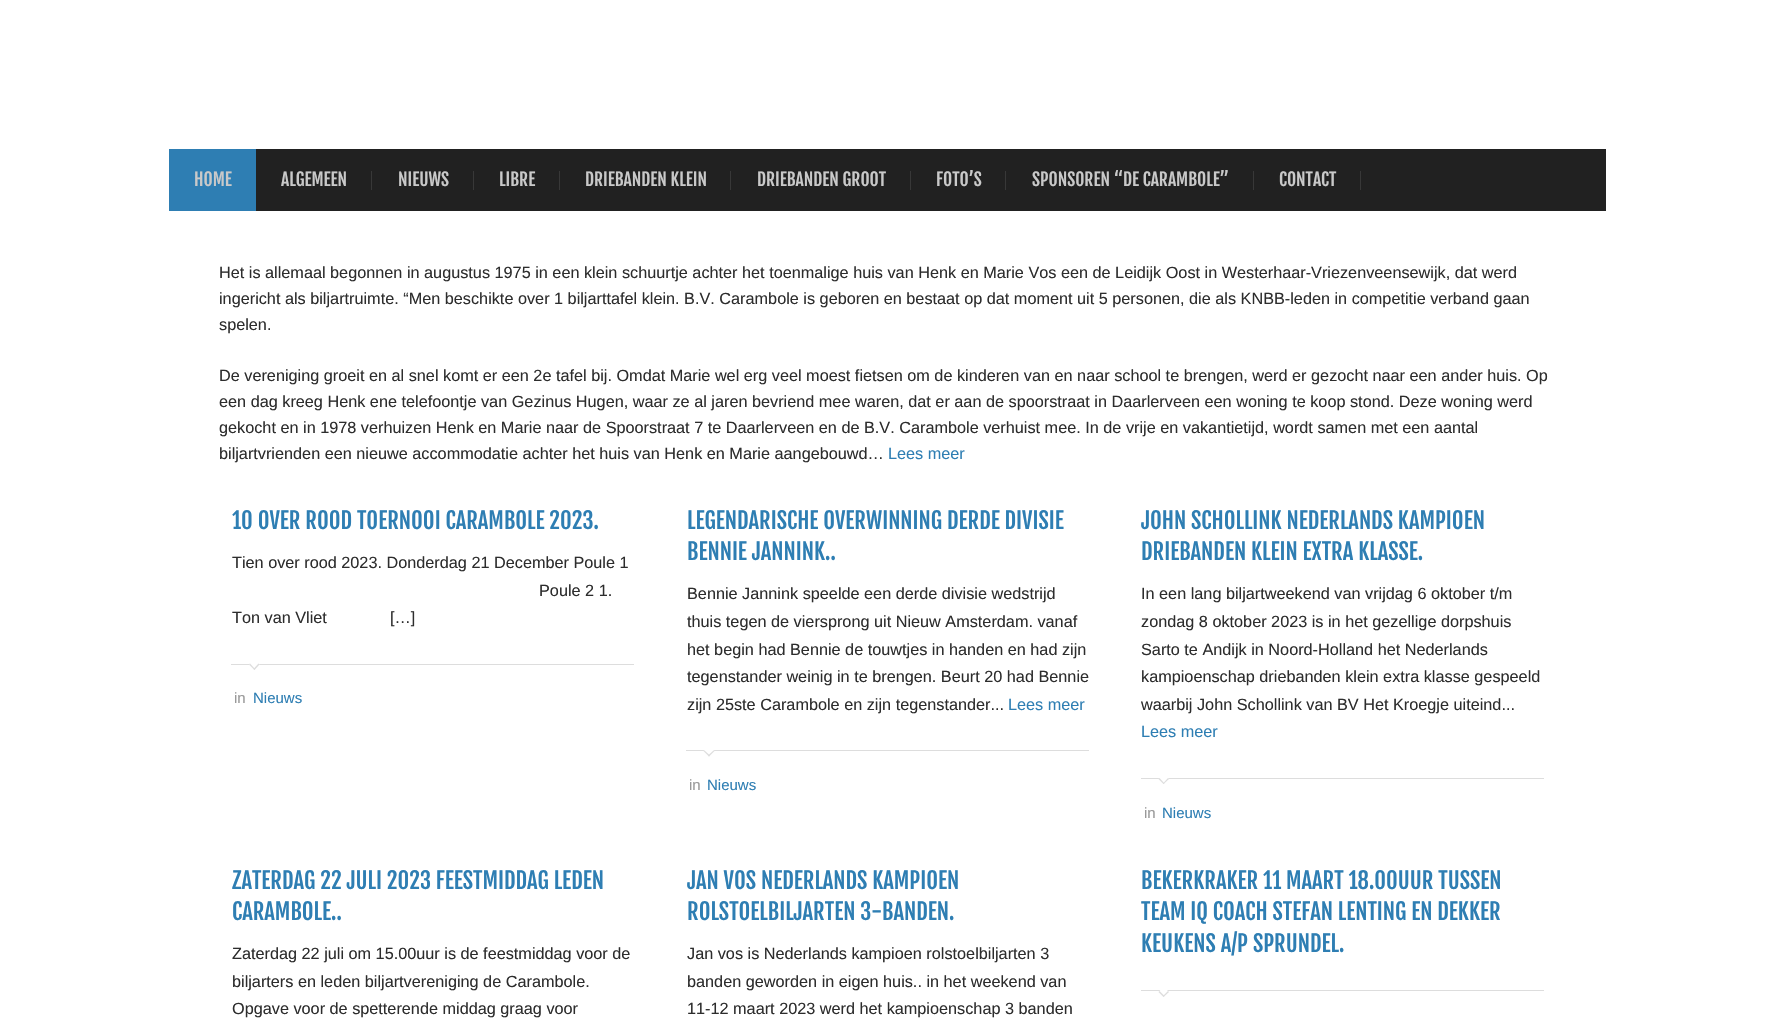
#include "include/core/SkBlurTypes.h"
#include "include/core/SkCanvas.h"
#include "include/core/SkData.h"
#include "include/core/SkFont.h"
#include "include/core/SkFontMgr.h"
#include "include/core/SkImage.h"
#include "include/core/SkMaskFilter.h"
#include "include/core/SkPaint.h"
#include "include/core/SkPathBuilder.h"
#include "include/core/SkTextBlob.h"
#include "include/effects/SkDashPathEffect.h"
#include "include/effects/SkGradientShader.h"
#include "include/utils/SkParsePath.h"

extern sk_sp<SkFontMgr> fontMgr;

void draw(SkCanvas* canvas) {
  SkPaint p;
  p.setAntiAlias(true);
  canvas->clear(SK_ColorWHITE);
  p.setColor(SkColorSetRGB(33, 33, 33));
  canvas->drawRect(SkRect::MakeLTRB(256, 149, 1606, 211), p);
  p.setColor(SkColorSetRGB(46, 126, 179));
  canvas->drawRect(SkRect::MakeLTRB(169, 149, 256, 211), p);
  p.setColor(SkColorSetRGB(56, 56, 56));
  canvas->drawRect(SkRect::MakeLTRB(371, 171, 372, 190), p);
  canvas->drawRect(SkRect::MakeLTRB(473, 171, 474, 190), p);
  canvas->drawRect(SkRect::MakeLTRB(559, 171, 560, 190), p);
  canvas->drawRect(SkRect::MakeLTRB(730, 171, 731, 190), p);
  canvas->drawRect(SkRect::MakeLTRB(910, 171, 911, 190), p);
  canvas->drawRect(SkRect::MakeLTRB(1005, 171, 1006, 190), p);
  canvas->drawRect(SkRect::MakeLTRB(1253, 171, 1254, 190), p);
  canvas->drawRect(SkRect::MakeLTRB(1360, 171, 1361, 190), p);
  p.setColor(SkColorSetRGB(221, 221, 221));
  canvas->drawRect(SkRect::MakeLTRB(231, 664, 634, 665), p);
  p.setColor(SK_ColorWHITE);
  canvas->drawPath(SkPathBuilder().moveTo(254.5f, 659).lineTo(259.5f, 664.5f).lineTo(254.5f, 670).lineTo(249, 664.5f).close().detach(), p);
  p.setColor(SkColorSetRGB(221, 221, 221));
  canvas->drawPath(SkPathBuilder().moveTo(258.5f, 663.5f).lineTo(259.5f, 664.5f).lineTo(254.5f, 670).lineTo(253.5f, 669).close().detach(), p);
  canvas->drawPath(SkPathBuilder().moveTo(250, 663.5f).lineTo(255, 669).lineTo(254.5f, 670).lineTo(249, 664.5f).close().detach(), p);
  canvas->drawRect(SkRect::MakeLTRB(686, 750, 1089, 751), p);
  p.setColor(SK_ColorWHITE);
  canvas->drawPath(SkPathBuilder().moveTo(709, 746).lineTo(714.5f, 751).lineTo(709, 756.5f).lineTo(703.5f, 751).close().detach(), p);
  p.setColor(SkColorSetRGB(221, 221, 221));
  canvas->drawPath(SkPathBuilder().moveTo(713.5f, 750.5f).lineTo(714.5f, 751).lineTo(709, 756.5f).lineTo(708, 755.5f).close().detach(), p);
  canvas->drawPath(SkPathBuilder().moveTo(704.5f, 750.5f).lineTo(710, 755.5f).lineTo(709, 756.5f).lineTo(703.5f, 751).close().detach(), p);
  canvas->drawRect(SkRect::MakeLTRB(1141, 778, 1544, 779), p);
  p.setColor(SK_ColorWHITE);
  canvas->drawPath(SkPathBuilder().moveTo(1163.5f, 773.5f).lineTo(1169, 779).lineTo(1163.5f, 784).lineTo(1158.5f, 779).close().detach(), p);
  p.setColor(SkColorSetRGB(221, 221, 221));
  canvas->drawPath(SkPathBuilder().moveTo(1168, 778).lineTo(1169, 779).lineTo(1163.5f, 784).lineTo(1163, 783.5f).close().detach(), p);
  canvas->drawPath(SkPathBuilder().moveTo(1159.5f, 778).lineTo(1164.5f, 783.5f).lineTo(1163.5f, 784).lineTo(1158.5f, 779).close().detach(), p);
  canvas->drawRect(SkRect::MakeLTRB(1141, 990, 1544, 991), p);
  p.setColor(SK_ColorWHITE);
  canvas->drawPath(SkPathBuilder().moveTo(1163.5f, 986.5f).lineTo(1169, 992).lineTo(1163.5f, 997).lineTo(1158.5f, 992).close().detach(), p);
  p.setColor(SkColorSetRGB(221, 221, 221));
  canvas->drawPath(SkPathBuilder().moveTo(1168, 991).lineTo(1169, 992).lineTo(1163.5f, 997).lineTo(1163, 996).close().detach(), p);
  canvas->drawPath(SkPathBuilder().moveTo(1159.5f, 991).lineTo(1164.5f, 996).lineTo(1163.5f, 997).lineTo(1158.5f, 992).close().detach(), p);
  SkFont font1(fontMgr->matchFamilyStyle("Fjalla One", SkFontStyle::Normal()), 17.5f);
  font1.setSubpixel(true);
  p.setColor(SkColorSetRGB(201, 201, 201));
  canvas->drawString("HOME", 194, 186, font1, p);
  canvas->drawString("ALGEMEEN", 281, 186, font1, p);
  canvas->drawString("NIEUWS", 398, 186, font1, p);
  canvas->drawString("LIBRE", 499, 186, font1, p);
  canvas->drawString("DRIEBANDEN KLEIN", 585, 186, font1, p);
  canvas->drawString("DRIEBANDEN GROOT", 757, 186, font1, p);
  canvas->drawString("FOTO’S", 936, 186, font1, p);
  canvas->drawString("SPONSOREN “DE CARAMBOLE”", 1032, 186, font1, p);
  canvas->drawString("CONTACT", 1279, 186, font1, p);
  SkFont font2(fontMgr->matchFamilyStyle("Liberation Sans", SkFontStyle::Normal()), 16.25f);
  font2.setSubpixel(true);
  p.setColor(SkColorSetRGB(45, 45, 45));
  canvas->drawString("Het is allemaal begonnen in augustus 1975 in een klein schuurtje achter het toenmalige huis van Henk en Marie Vos een de Leidijk Oost in Westerhaar-Vriezenveensewijk, dat werd", 219, 278, font2, p);
  canvas->drawString("ingericht als biljartruimte. “Men beschikte over 1 biljarttafel klein. B.V. Carambole is geboren en bestaat op dat moment uit 5 personen, die als KNBB-leden in competitie verband gaan", 219, 304, font2, p);
  canvas->drawString("spelen.", 219, 330, font2, p);
  canvas->drawString("De vereniging groeit en al snel komt er een 2e tafel bij. Omdat Marie wel erg veel moest fietsen om de kinderen van en naar school te brengen, werd er gezocht naar een ander huis. Op", 219, 381, font2, p);
  canvas->drawString("een dag kreeg Henk ene telefoontje van Gezinus Hugen, waar ze al jaren bevriend mee waren, dat er aan de spoorstraat in Daarlerveen een woning te koop stond. Deze woning werd", 219, 407, font2, p);
  canvas->drawString("gekocht en in 1978 verhuizen Henk en Marie naar de Spoorstraat 7 te Daarlerveen en de B.V. Carambole verhuist mee. In de vrije en vakantietijd, wordt samen met een aantal", 219, 433, font2, p);
  canvas->drawString("biljartvrienden een nieuwe accommodatie achter het huis van Henk en Marie aangebouwd…", 219, 459, font2, p);
  p.setColor(SkColorSetRGB(46, 126, 179));
  canvas->drawString("Lees meer", 888, 459, font2, p);
  SkFont font3(fontMgr->matchFamilyStyle("Fjalla One", SkFontStyle::Normal()), 22.5f);
  font3.setSubpixel(true);
  canvas->drawString("10 OVER ROOD TOERNOOI CARAMBOLE 2023.", 232, 529, font3, p);
  p.setColor(SkColorSetRGB(45, 45, 45));
  canvas->drawString("Tien over rood 2023. Donderdag 21 December Poule 1", 232, 568, font2, p);
  canvas->drawString("Poule 2 1.", 539, 596, font2, p);
  canvas->drawString("Ton van Vliet              […]", 232, 623, font2, p);
  SkFont font4(fontMgr->matchFamilyStyle("Liberation Sans", SkFontStyle::Normal()), 15);
  font4.setSubpixel(true);
  p.setColor(SkColorSetRGB(153, 153, 153));
  canvas->drawString("in", 234, 703, font4, p);
  p.setColor(SkColorSetRGB(46, 126, 179));
  canvas->drawString("Nieuws", 253, 703, font4, p);
  canvas->drawString("LEGENDARISCHE OVERWINNING DERDE DIVISIE", 687, 529, font3, p);
  canvas->drawString("BENNIE JANNINK..", 687, 560, font3, p);
  p.setColor(SkColorSetRGB(45, 45, 45));
  canvas->drawString("Bennie Jannink speelde een derde divisie wedstrijd", 687, 599, font2, p);
  canvas->drawString("thuis tegen de viersprong uit Nieuw Amsterdam. vanaf", 687, 627, font2, p);
  canvas->drawString("het begin had Bennie de touwtjes in handen en had zijn", 687, 655, font2, p);
  canvas->drawString("tegenstander weinig in te brengen. Beurt 20 had Bennie", 687, 682, font2, p);
  canvas->drawString("zijn 25ste Carambole en zijn tegenstander...", 687, 710, font2, p);
  p.setColor(SkColorSetRGB(46, 126, 179));
  canvas->drawString("Lees meer", 1008, 710, font2, p);
  p.setColor(SkColorSetRGB(153, 153, 153));
  canvas->drawString("in", 689, 790, font4, p);
  p.setColor(SkColorSetRGB(46, 126, 179));
  canvas->drawString("Nieuws", 707, 790, font4, p);
  canvas->drawString("JOHN SCHOLLINK NEDERLANDS KAMPIOEN", 1141, 529, font3, p);
  canvas->drawString("DRIEBANDEN KLEIN EXTRA KLASSE.", 1141, 560, font3, p);
  p.setColor(SkColorSetRGB(45, 45, 45));
  canvas->drawString("In een lang biljartweekend van vrijdag 6 oktober t/m", 1141, 599, font2, p);
  canvas->drawString("zondag 8 oktober 2023 is in het gezellige dorpshuis", 1141, 627, font2, p);
  canvas->drawString("Sarto te Andijk in Noord-Holland het Nederlands", 1141, 655, font2, p);
  canvas->drawString("kampioenschap driebanden klein extra klasse gespeeld", 1141, 682, font2, p);
  canvas->drawString("waarbij John Schollink van BV Het Kroegje uiteind...", 1141, 710, font2, p);
  p.setColor(SkColorSetRGB(46, 126, 179));
  canvas->drawString("Lees meer", 1141, 737, font2, p);
  p.setColor(SkColorSetRGB(153, 153, 153));
  canvas->drawString("in", 1144, 818, font4, p);
  p.setColor(SkColorSetRGB(46, 126, 179));
  canvas->drawString("Nieuws", 1162, 818, font4, p);
  canvas->drawString("ZATERDAG 22 JULI 2023 FEESTMIDDAG LEDEN", 232, 889, font3, p);
  canvas->drawString("CARAMBOLE..", 232, 920, font3, p);
  p.setColor(SkColorSetRGB(45, 45, 45));
  canvas->drawString("Zaterdag 22 juli om 15.00uur is de feestmiddag voor de", 232, 959, font2, p);
  canvas->drawString("biljarters en leden biljartvereniging de Carambole.", 232, 987, font2, p);
  canvas->drawString("Opgave voor de spetterende middag graag voor", 232, 1014, font2, p);
  p.setColor(SkColorSetRGB(46, 126, 179));
  canvas->drawString("JAN VOS NEDERLANDS KAMPIOEN", 687, 889, font3, p);
  canvas->drawString("ROLSTOELBILJARTEN 3-BANDEN.", 687, 920, font3, p);
  p.setColor(SkColorSetRGB(45, 45, 45));
  canvas->drawString("Jan vos is Nederlands kampioen rolstoelbiljarten 3", 687, 959, font2, p);
  canvas->drawString("banden geworden in eigen huis.. in het weekend van", 687, 987, font2, p);
  canvas->drawString("11-12 maart 2023 werd het kampioenschap 3 banden", 687, 1014, font2, p);
  p.setColor(SkColorSetRGB(46, 126, 179));
  canvas->drawString("BEKERKRAKER 11 MAART 18.00UUR TUSSEN", 1141, 889, font3, p);
  canvas->drawString("TEAM IQ COACH STEFAN LENTING EN DEKKER", 1141, 920, font3, p);
  canvas->drawString("KEUKENS A/P SPRUNDEL.", 1141, 952, font3, p);
}
